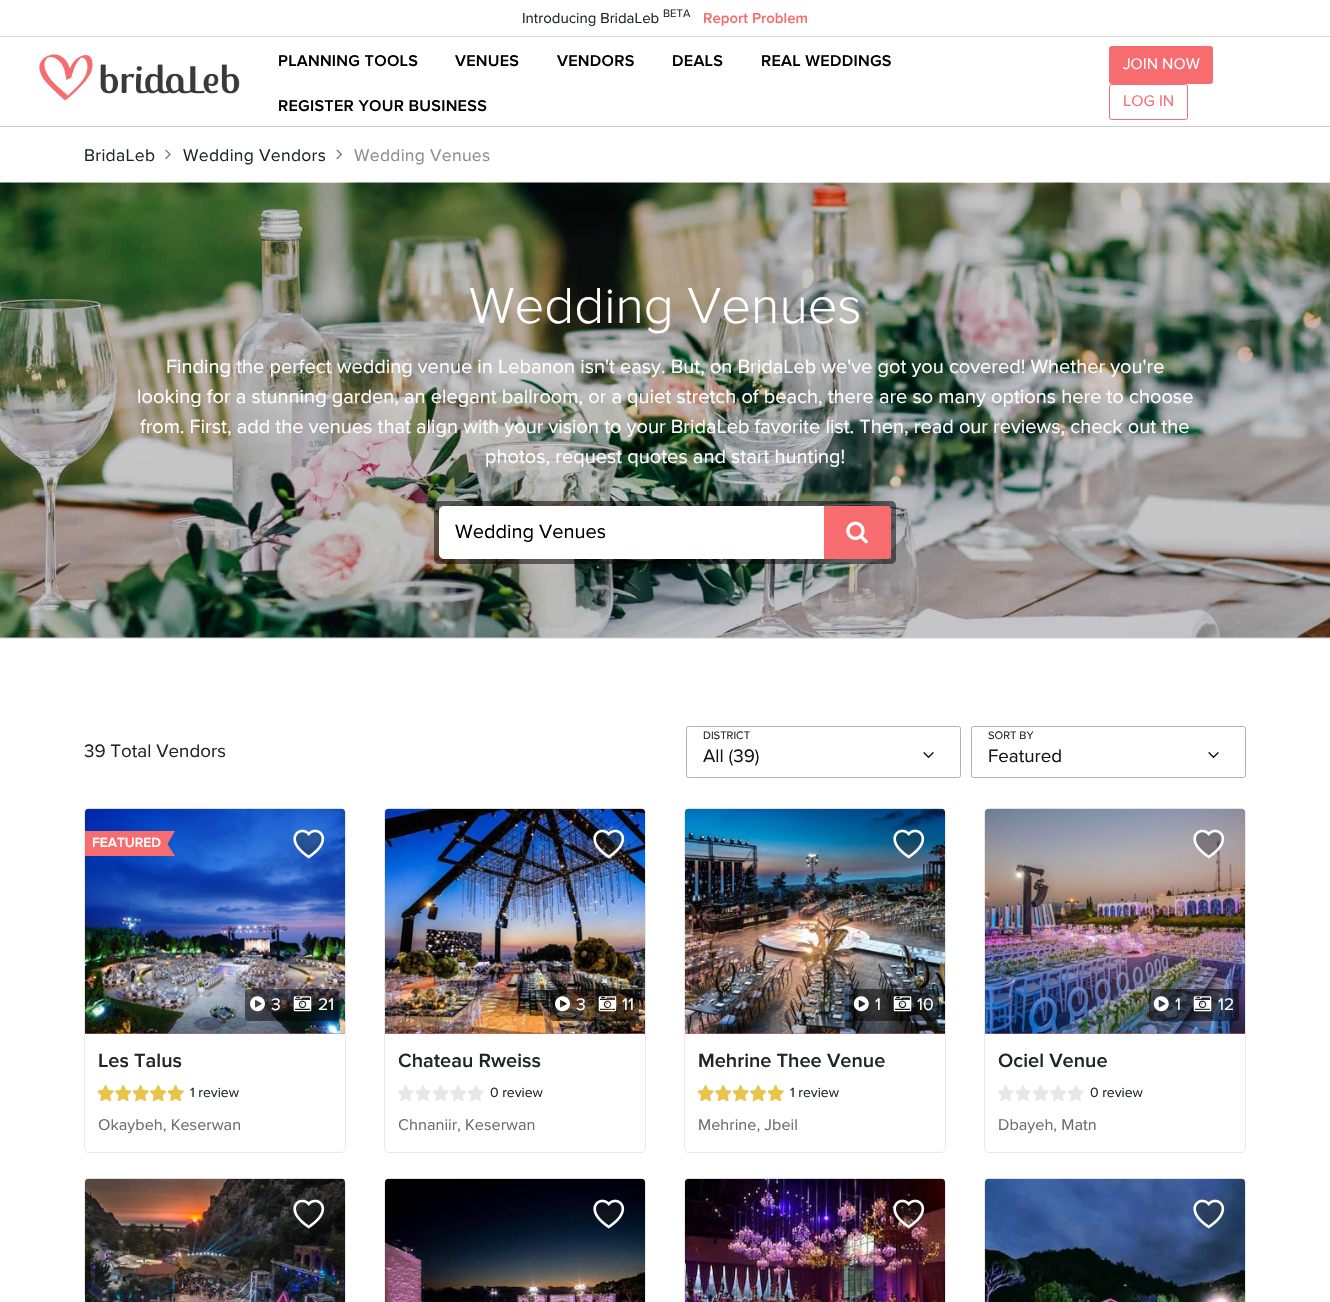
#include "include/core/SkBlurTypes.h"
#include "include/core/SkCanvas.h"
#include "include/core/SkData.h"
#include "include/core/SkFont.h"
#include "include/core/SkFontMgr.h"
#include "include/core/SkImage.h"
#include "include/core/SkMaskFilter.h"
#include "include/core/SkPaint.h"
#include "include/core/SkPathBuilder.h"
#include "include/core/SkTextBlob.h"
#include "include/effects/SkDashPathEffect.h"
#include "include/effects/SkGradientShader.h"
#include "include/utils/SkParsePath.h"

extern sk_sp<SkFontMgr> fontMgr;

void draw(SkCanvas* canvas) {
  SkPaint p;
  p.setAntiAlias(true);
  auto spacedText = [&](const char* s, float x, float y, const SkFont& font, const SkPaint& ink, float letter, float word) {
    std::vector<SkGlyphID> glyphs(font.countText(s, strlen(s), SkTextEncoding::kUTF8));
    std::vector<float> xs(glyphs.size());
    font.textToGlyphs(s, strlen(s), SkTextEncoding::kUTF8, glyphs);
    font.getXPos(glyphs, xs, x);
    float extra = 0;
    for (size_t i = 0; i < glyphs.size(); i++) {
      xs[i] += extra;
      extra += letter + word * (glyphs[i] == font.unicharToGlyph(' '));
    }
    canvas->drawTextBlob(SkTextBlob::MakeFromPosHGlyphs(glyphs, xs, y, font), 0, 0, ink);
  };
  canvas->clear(SK_ColorWHITE);
  p.setColor(SkColorSetRGB(204, 204, 204));
  canvas->drawRect(SkRect::MakeLTRB(0, 637, 1330, 638), p);
  p.setColor(SkColorSetRGB(217, 217, 217));
  canvas->drawRect(SkRect::MakeLTRB(0, 36, 1330, 37), p);
  p.setColor(SkColorSetRGB(202, 204, 208));
  canvas->drawRect(SkRect::MakeLTRB(0, 126, 1330, 127), p);
  canvas->drawImageRect(SkImages::DeferredFromEncodedData(SkData::MakeFromFileName("images/1.png")), SkRect::MakeLTRB(39, 54, 240, 101), SkSamplingOptions());
  p.setColor(SkColorSetRGB(247, 108, 111));
  canvas->drawRoundRect(SkRect::MakeLTRB(1109.5f, 46.5f, 1212.5f, 83.5f), 2, 2, p);
  p.setStyle(SkPaint::kStroke_Style);
  p.setStrokeWidth(1);
  canvas->drawRoundRect(SkRect::MakeLTRB(1109.5f, 46.5f, 1212.5f, 83.5f), 2, 2, p);
  canvas->drawRoundRect(SkRect::MakeLTRB(1109.5f, 84.5f, 1187.5f, 119.5f), 2, 2, p);
  canvas->drawImageRect(SkImages::DeferredFromEncodedData(SkData::MakeFromFileName("images/2.png")), SkRect::MakeLTRB(165, 149, 171, 160), SkSamplingOptions());
  canvas->drawImageRect(SkImages::DeferredFromEncodedData(SkData::MakeFromFileName("images/3.png")), SkRect::MakeLTRB(336, 149, 342, 160), SkSamplingOptions());
  canvas->drawImageRect(SkImages::DeferredFromEncodedData(SkData::MakeFromFileName("images/4.png")), SkRect::MakeLTRB(0, 182, 1330, 638), SkSamplingOptions());
  p.setStyle(SkPaint::kFill_Style);
  p.setColor(SkColorSetRGB(231, 231, 231));
  canvas->drawRect(SkRect::MakeLTRB(0, 638, 1330, 639), p);
  p.setColor(SkColorSetARGB(77, 0, 0, 0));
  canvas->drawRoundRect(SkRect::MakeLTRB(434, 501, 896, 564), 5, 5, p);
  p.setStyle(SkPaint::kStroke_Style);
  p.setStrokeWidth(5);
  canvas->drawRoundRect(SkRect::MakeLTRB(436.5f, 503.5f, 893.5f, 561.5f), 2.5f, 2.5f, p);
  p.setStyle(SkPaint::kFill_Style);
  p.setColor(SK_ColorWHITE);
  canvas->drawRoundRect(SkRect::MakeLTRB(439.5f, 506.5f, 890.5f, 558.5f), 4.5f, 4.5f, p);
  p.setStyle(SkPaint::kStroke_Style);
  p.setStrokeWidth(1);
  canvas->drawRoundRect(SkRect::MakeLTRB(439.5f, 506.5f, 890.5f, 558.5f), 4.5f, 4.5f, p);
  p.setStyle(SkPaint::kFill_Style);
  p.setColor(SkColorSetRGB(247, 108, 111));
  canvas->drawPath(SkPathBuilder().moveTo(824, 506).lineTo(887, 506).cubicTo(889, 506, 891, 508, 891, 510).lineTo(891, 555).cubicTo(891, 557, 889, 559, 887, 559).lineTo(824, 559).close().detach(), p);
  canvas->drawImageRect(SkImages::DeferredFromEncodedData(SkData::MakeFromFileName("images/5.png")), SkRect::MakeLTRB(846, 521, 868, 544), SkSamplingOptions());
  p.setStyle(SkPaint::kStroke_Style);
  p.setColor(SkColorSetRGB(177, 177, 177));
  canvas->drawRoundRect(SkRect::MakeLTRB(686.5f, 726.5f, 960.5f, 777.5f), 2, 2, p);
  canvas->drawImageRect(SkImages::DeferredFromEncodedData(SkData::MakeFromFileName("images/6.png")), SkRect::MakeLTRB(923, 752, 934, 758), SkSamplingOptions());
  canvas->drawRoundRect(SkRect::MakeLTRB(971.5f, 726.5f, 1245.5f, 777.5f), 2, 2, p);
  canvas->drawImageRect(SkImages::DeferredFromEncodedData(SkData::MakeFromFileName("images/6.png")), SkRect::MakeLTRB(1208, 752, 1219, 758), SkSamplingOptions());
  p.setColor(SkColorSetRGB(233, 233, 233));
  canvas->drawRoundRect(SkRect::MakeLTRB(84.5f, 808.5f, 345.5f, 1152.5f), 4.5f, 4.5f, p);
  p.setStyle(SkPaint::kFill_Style);
  p.setColor(SkColorSetRGB(247, 108, 111));
  canvas->drawPath(SkPathBuilder().moveTo(89, 809).lineTo(341, 809).cubicTo(343, 809, 345, 811, 345, 813).lineTo(345, 1034).lineTo(85, 1034).lineTo(85, 813).cubicTo(85, 811, 87, 809, 89, 809).close().detach(), p);
  canvas->drawImageRect(SkImages::DeferredFromEncodedData(SkData::MakeFromFileName("images/7.png")), SkRect::MakeLTRB(85, 808, 345, 1034), SkSamplingOptions());
  canvas->drawRect(SkRect::MakeLTRB(85, 831, 168, 856), p);
  canvas->drawPath(SkPathBuilder().moveTo(167.5f, 831).lineTo(175, 831).lineTo(167.5f, 844).close().moveTo(175, 856).lineTo(167.5f, 856).lineTo(167.5f, 844).close().detach(), p);
  canvas->drawImageRect(SkImages::DeferredFromEncodedData(SkData::MakeFromFileName("images/8.png")), SkRect::MakeLTRB(293, 829, 325, 859), SkSamplingOptions());
  p.setColor(SkColorSetARGB(128, 0, 0, 0));
  canvas->drawRoundRect(SkRect::MakeLTRB(245, 989, 339, 1021), 4, 4, p);
  canvas->drawImageRect(SkImages::DeferredFromEncodedData(SkData::MakeFromFileName("images/9.png")), SkRect::MakeLTRB(250, 996, 265, 1012), SkSamplingOptions());
  canvas->drawImageRect(SkImages::DeferredFromEncodedData(SkData::MakeFromFileName("images/10.png")), SkRect::MakeLTRB(293, 996, 312, 1012), SkSamplingOptions());
  canvas->drawImageRect(SkImages::DeferredFromEncodedData(SkData::MakeFromFileName("images/11.png")), SkRect::MakeLTRB(98, 1085, 114, 1101), SkSamplingOptions());
  canvas->drawImageRect(SkImages::DeferredFromEncodedData(SkData::MakeFromFileName("images/12.png")), SkRect::MakeLTRB(115, 1085, 131, 1101), SkSamplingOptions());
  canvas->drawImageRect(SkImages::DeferredFromEncodedData(SkData::MakeFromFileName("images/11.png")), SkRect::MakeLTRB(133, 1085, 149, 1101), SkSamplingOptions());
  canvas->drawImageRect(SkImages::DeferredFromEncodedData(SkData::MakeFromFileName("images/12.png")), SkRect::MakeLTRB(150, 1085, 166, 1101), SkSamplingOptions());
  canvas->drawImageRect(SkImages::DeferredFromEncodedData(SkData::MakeFromFileName("images/11.png")), SkRect::MakeLTRB(168, 1085, 184, 1101), SkSamplingOptions());
  canvas->drawImageRect(SkImages::DeferredFromEncodedData(SkData::MakeFromFileName("images/13.png")), SkRect::MakeLTRB(98, 1085, 114, 1101), SkSamplingOptions());
  canvas->drawImageRect(SkImages::DeferredFromEncodedData(SkData::MakeFromFileName("images/14.png")), SkRect::MakeLTRB(115, 1085, 131, 1101), SkSamplingOptions());
  canvas->drawImageRect(SkImages::DeferredFromEncodedData(SkData::MakeFromFileName("images/13.png")), SkRect::MakeLTRB(133, 1085, 149, 1101), SkSamplingOptions());
  canvas->drawImageRect(SkImages::DeferredFromEncodedData(SkData::MakeFromFileName("images/14.png")), SkRect::MakeLTRB(150, 1085, 166, 1101), SkSamplingOptions());
  canvas->drawImageRect(SkImages::DeferredFromEncodedData(SkData::MakeFromFileName("images/13.png")), SkRect::MakeLTRB(168, 1085, 184, 1101), SkSamplingOptions());
  p.setStyle(SkPaint::kStroke_Style);
  p.setColor(SkColorSetRGB(233, 233, 233));
  canvas->drawRoundRect(SkRect::MakeLTRB(384.5f, 808.5f, 645.5f, 1152.5f), 4.5f, 4.5f, p);
  p.setStyle(SkPaint::kFill_Style);
  p.setColor(SkColorSetRGB(247, 108, 111));
  canvas->drawPath(SkPathBuilder().moveTo(389, 809).lineTo(641, 809).cubicTo(643, 809, 645, 811, 645, 813).lineTo(645, 1034).lineTo(385, 1034).lineTo(385, 813).cubicTo(385, 811, 387, 809, 389, 809).close().detach(), p);
  canvas->drawImageRect(SkImages::DeferredFromEncodedData(SkData::MakeFromFileName("images/15.png")), SkRect::MakeLTRB(385, 808, 645, 1034), SkSamplingOptions());
  canvas->drawImageRect(SkImages::DeferredFromEncodedData(SkData::MakeFromFileName("images/16.png")), SkRect::MakeLTRB(593, 829, 625, 859), SkSamplingOptions());
  p.setColor(SkColorSetARGB(128, 0, 0, 0));
  canvas->drawRoundRect(SkRect::MakeLTRB(550, 989, 639, 1021), 4, 4, p);
  canvas->drawImageRect(SkImages::DeferredFromEncodedData(SkData::MakeFromFileName("images/17.png")), SkRect::MakeLTRB(555, 996, 570, 1012), SkSamplingOptions());
  canvas->drawImageRect(SkImages::DeferredFromEncodedData(SkData::MakeFromFileName("images/18.png")), SkRect::MakeLTRB(598, 996, 617, 1012), SkSamplingOptions());
  canvas->drawImageRect(SkImages::DeferredFromEncodedData(SkData::MakeFromFileName("images/11.png")), SkRect::MakeLTRB(398, 1085, 414, 1101), SkSamplingOptions());
  canvas->drawImageRect(SkImages::DeferredFromEncodedData(SkData::MakeFromFileName("images/12.png")), SkRect::MakeLTRB(415, 1085, 431, 1101), SkSamplingOptions());
  canvas->drawImageRect(SkImages::DeferredFromEncodedData(SkData::MakeFromFileName("images/11.png")), SkRect::MakeLTRB(433, 1085, 449, 1101), SkSamplingOptions());
  canvas->drawImageRect(SkImages::DeferredFromEncodedData(SkData::MakeFromFileName("images/12.png")), SkRect::MakeLTRB(450, 1085, 466, 1101), SkSamplingOptions());
  canvas->drawImageRect(SkImages::DeferredFromEncodedData(SkData::MakeFromFileName("images/11.png")), SkRect::MakeLTRB(468, 1085, 484, 1101), SkSamplingOptions());
  p.setStyle(SkPaint::kStroke_Style);
  p.setColor(SkColorSetRGB(233, 233, 233));
  canvas->drawRoundRect(SkRect::MakeLTRB(684.5f, 808.5f, 945.5f, 1152.5f), 4.5f, 4.5f, p);
  p.setStyle(SkPaint::kFill_Style);
  p.setColor(SkColorSetRGB(247, 108, 111));
  canvas->drawPath(SkPathBuilder().moveTo(689, 809).lineTo(941, 809).cubicTo(943, 809, 945, 811, 945, 813).lineTo(945, 1034).lineTo(685, 1034).lineTo(685, 813).cubicTo(685, 811, 687, 809, 689, 809).close().detach(), p);
  canvas->drawImageRect(SkImages::DeferredFromEncodedData(SkData::MakeFromFileName("images/19.png")), SkRect::MakeLTRB(685, 808, 945, 1034), SkSamplingOptions());
  canvas->drawImageRect(SkImages::DeferredFromEncodedData(SkData::MakeFromFileName("images/20.png")), SkRect::MakeLTRB(893, 829, 925, 859), SkSamplingOptions());
  p.setColor(SkColorSetARGB(128, 0, 0, 0));
  canvas->drawRoundRect(SkRect::MakeLTRB(849, 989, 939, 1021), 4, 4, p);
  canvas->drawImageRect(SkImages::DeferredFromEncodedData(SkData::MakeFromFileName("images/21.png")), SkRect::MakeLTRB(853, 996, 869, 1012), SkSamplingOptions());
  canvas->drawImageRect(SkImages::DeferredFromEncodedData(SkData::MakeFromFileName("images/22.png")), SkRect::MakeLTRB(893, 996, 912, 1012), SkSamplingOptions());
  canvas->drawImageRect(SkImages::DeferredFromEncodedData(SkData::MakeFromFileName("images/11.png")), SkRect::MakeLTRB(698, 1085, 714, 1101), SkSamplingOptions());
  canvas->drawImageRect(SkImages::DeferredFromEncodedData(SkData::MakeFromFileName("images/12.png")), SkRect::MakeLTRB(715, 1085, 731, 1101), SkSamplingOptions());
  canvas->drawImageRect(SkImages::DeferredFromEncodedData(SkData::MakeFromFileName("images/11.png")), SkRect::MakeLTRB(733, 1085, 749, 1101), SkSamplingOptions());
  canvas->drawImageRect(SkImages::DeferredFromEncodedData(SkData::MakeFromFileName("images/12.png")), SkRect::MakeLTRB(750, 1085, 766, 1101), SkSamplingOptions());
  canvas->drawImageRect(SkImages::DeferredFromEncodedData(SkData::MakeFromFileName("images/11.png")), SkRect::MakeLTRB(768, 1085, 784, 1101), SkSamplingOptions());
  canvas->drawImageRect(SkImages::DeferredFromEncodedData(SkData::MakeFromFileName("images/13.png")), SkRect::MakeLTRB(698, 1085, 714, 1101), SkSamplingOptions());
  canvas->drawImageRect(SkImages::DeferredFromEncodedData(SkData::MakeFromFileName("images/14.png")), SkRect::MakeLTRB(715, 1085, 731, 1101), SkSamplingOptions());
  canvas->drawImageRect(SkImages::DeferredFromEncodedData(SkData::MakeFromFileName("images/13.png")), SkRect::MakeLTRB(733, 1085, 749, 1101), SkSamplingOptions());
  canvas->drawImageRect(SkImages::DeferredFromEncodedData(SkData::MakeFromFileName("images/14.png")), SkRect::MakeLTRB(750, 1085, 766, 1101), SkSamplingOptions());
  canvas->drawImageRect(SkImages::DeferredFromEncodedData(SkData::MakeFromFileName("images/13.png")), SkRect::MakeLTRB(768, 1085, 784, 1101), SkSamplingOptions());
  p.setStyle(SkPaint::kStroke_Style);
  p.setColor(SkColorSetRGB(233, 233, 233));
  canvas->drawRoundRect(SkRect::MakeLTRB(984.5f, 808.5f, 1245.5f, 1152.5f), 4.5f, 4.5f, p);
  p.setStyle(SkPaint::kFill_Style);
  p.setColor(SkColorSetRGB(247, 108, 111));
  canvas->drawPath(SkPathBuilder().moveTo(989, 809).lineTo(1241, 809).cubicTo(1243, 809, 1245, 811, 1245, 813).lineTo(1245, 1034).lineTo(985, 1034).lineTo(985, 813).cubicTo(985, 811, 987, 809, 989, 809).close().detach(), p);
  canvas->drawImageRect(SkImages::DeferredFromEncodedData(SkData::MakeFromFileName("images/23.png")), SkRect::MakeLTRB(985, 808, 1245, 1034), SkSamplingOptions());
  canvas->drawImageRect(SkImages::DeferredFromEncodedData(SkData::MakeFromFileName("images/24.png")), SkRect::MakeLTRB(1193, 829, 1225, 859), SkSamplingOptions());
  p.setColor(SkColorSetARGB(128, 0, 0, 0));
  canvas->drawRoundRect(SkRect::MakeLTRB(1149, 989, 1239, 1021), 4, 4, p);
  canvas->drawImageRect(SkImages::DeferredFromEncodedData(SkData::MakeFromFileName("images/25.png")), SkRect::MakeLTRB(1153, 996, 1169, 1012), SkSamplingOptions());
  canvas->drawImageRect(SkImages::DeferredFromEncodedData(SkData::MakeFromFileName("images/26.png")), SkRect::MakeLTRB(1193, 996, 1212, 1012), SkSamplingOptions());
  canvas->drawImageRect(SkImages::DeferredFromEncodedData(SkData::MakeFromFileName("images/11.png")), SkRect::MakeLTRB(998, 1085, 1014, 1101), SkSamplingOptions());
  canvas->drawImageRect(SkImages::DeferredFromEncodedData(SkData::MakeFromFileName("images/12.png")), SkRect::MakeLTRB(1015, 1085, 1031, 1101), SkSamplingOptions());
  canvas->drawImageRect(SkImages::DeferredFromEncodedData(SkData::MakeFromFileName("images/11.png")), SkRect::MakeLTRB(1033, 1085, 1049, 1101), SkSamplingOptions());
  canvas->drawImageRect(SkImages::DeferredFromEncodedData(SkData::MakeFromFileName("images/12.png")), SkRect::MakeLTRB(1050, 1085, 1066, 1101), SkSamplingOptions());
  canvas->drawImageRect(SkImages::DeferredFromEncodedData(SkData::MakeFromFileName("images/11.png")), SkRect::MakeLTRB(1068, 1085, 1084, 1101), SkSamplingOptions());
  p.setStyle(SkPaint::kStroke_Style);
  p.setColor(SkColorSetRGB(233, 233, 233));
  canvas->drawRoundRect(SkRect::MakeLTRB(84.5f, 1178.5f, 345.5f, 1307.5f), 4.5f, 4.5f, p);
  canvas->drawImageRect(SkImages::DeferredFromEncodedData(SkData::MakeFromFileName("images/27.png")), SkRect::MakeLTRB(85, 1178, 345, 1302), SkSamplingOptions());
  canvas->drawImageRect(SkImages::DeferredFromEncodedData(SkData::MakeFromFileName("images/28.png")), SkRect::MakeLTRB(293, 1199, 325, 1229), SkSamplingOptions());
  canvas->drawRoundRect(SkRect::MakeLTRB(384.5f, 1178.5f, 645.5f, 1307.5f), 4.5f, 4.5f, p);
  canvas->drawImageRect(SkImages::DeferredFromEncodedData(SkData::MakeFromFileName("images/29.png")), SkRect::MakeLTRB(385, 1178, 645, 1302), SkSamplingOptions());
  canvas->drawImageRect(SkImages::DeferredFromEncodedData(SkData::MakeFromFileName("images/30.png")), SkRect::MakeLTRB(593, 1199, 625, 1229), SkSamplingOptions());
  canvas->drawRoundRect(SkRect::MakeLTRB(684.5f, 1178.5f, 945.5f, 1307.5f), 4.5f, 4.5f, p);
  canvas->drawImageRect(SkImages::DeferredFromEncodedData(SkData::MakeFromFileName("images/31.png")), SkRect::MakeLTRB(685, 1178, 945, 1302), SkSamplingOptions());
  canvas->drawImageRect(SkImages::DeferredFromEncodedData(SkData::MakeFromFileName("images/32.png")), SkRect::MakeLTRB(893, 1199, 925, 1229), SkSamplingOptions());
  canvas->drawRoundRect(SkRect::MakeLTRB(984.5f, 1178.5f, 1245.5f, 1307.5f), 4.5f, 4.5f, p);
  canvas->drawImageRect(SkImages::DeferredFromEncodedData(SkData::MakeFromFileName("images/33.png")), SkRect::MakeLTRB(985, 1178, 1245, 1302), SkSamplingOptions());
  canvas->drawImageRect(SkImages::DeferredFromEncodedData(SkData::MakeFromFileName("images/34.png")), SkRect::MakeLTRB(1193, 1199, 1225, 1229), SkSamplingOptions());
  SkFont font1(fontMgr->matchFamilyStyle("Proxima Nova", SkFontStyle::Normal()), 15);
  font1.setSubpixel(true);
  p.setStyle(SkPaint::kFill_Style);
  p.setColor(SkColorSetRGB(33, 37, 41));
  canvas->drawString("Introducing BridaLeb", 522, 23, font1, p);
  SkFont font2(fontMgr->matchFamilyStyle("Proxima Nova", SkFontStyle::Normal()), 11.25f);
  font2.setSubpixel(true);
  canvas->drawString("BETA", 663, 17, font2, p);
  SkFont font3(fontMgr->matchFamilyStyle("Proxima Nova", SkFontStyle(600, SkFontStyle::kNormal_Width, SkFontStyle::kUpright_Slant)), 15);
  font3.setSubpixel(true);
  p.setColor(SkColorSetRGB(247, 108, 111));
  canvas->drawString("Report Problem", 703, 23, font3, p);
  SkFont font4(fontMgr->matchFamilyStyle("Proxima Nova", SkFontStyle(600, SkFontStyle::kNormal_Width, SkFontStyle::kUpright_Slant)), 16.25f);
  font4.setSubpixel(true);
  p.setColor(SK_ColorBLACK);
  spacedText("PLANNING TOOLS", 278, 66, font4, p, 0.25f, 0);
  spacedText("VENUES", 455, 66, font4, p, 0.25f, 0);
  spacedText("VENDORS", 557, 66, font4, p, 0.25f, 0);
  spacedText("DEALS", 672, 66, font4, p, 0.25f, 0);
  spacedText("REAL WEDDINGS", 761, 66, font4, p, 0.25f, 0);
  spacedText("REGISTER YOUR BUSINESS", 278, 111, font4, p, 0.25f, 0);
  SkFont font5(fontMgr->matchFamilyStyle("Proxima Nova", SkFontStyle::Normal()), 16);
  font5.setSubpixel(true);
  p.setColor(SK_ColorWHITE);
  canvas->drawString("JOIN NOW", 1123, 69, font5, p);
  p.setColor(SkColorSetRGB(247, 108, 111));
  canvas->drawString("LOG IN", 1123, 106, font5, p);
  SkFont font6(fontMgr->matchFamilyStyle("Proxima Nova", SkFontStyle::Normal()), 17.5f);
  font6.setSubpixel(true);
  p.setColor(SkColorSetRGB(33, 37, 41));
  spacedText("BridaLeb", 84, 161, font6, p, 0.3f, 0);
  spacedText("Wedding Vendors", 183, 161, font6, p, 0.3f, 0);
  p.setColor(SkColorSetRGB(140, 140, 140));
  spacedText("Wedding Venues", 354, 161, font6, p, 0.3f, 0);
  SkFont font7(fontMgr->matchFamilyStyle("Proxima Nova", SkFontStyle(300, SkFontStyle::kNormal_Width, SkFontStyle::kUpright_Slant)), 52.5f);
  font7.setSubpixel(true);
  p.setColor(SK_ColorWHITE);
  canvas->drawString("Wedding Venues", 469, 323, font7, p);
  SkFont font8(fontMgr->matchFamilyStyle("Proxima Nova", SkFontStyle::Normal()), 20);
  font8.setSubpixel(true);
  canvas->drawString("Finding the perfect wedding venue in Lebanon isn't easy. But, on BridaLeb we've got you covered! Whether you're", 166, 373, font8, p);
  canvas->drawString("looking for a stunning garden, an elegant ballroom, or a quiet stretch of beach, there are so many options here to choose", 137, 403, font8, p);
  canvas->drawString("from. First, add the venues that align with your vision to your BridaLeb favorite list. Then, read our reviews, check out the", 140, 433, font8, p);
  canvas->drawString("photos, request quotes and start hunting!", 485, 463, font8, p);
  p.setColor(SK_ColorBLACK);
  canvas->drawString("Wedding Venues", 455, 538, font8, p);
  SkFont font9(fontMgr->matchFamilyStyle("Proxima Nova", SkFontStyle::Normal()), 18.75f);
  font9.setSubpixel(true);
  p.setColor(SkColorSetRGB(33, 37, 41));
  canvas->drawString("39 Total Vendors", 84, 757, font9, p);
  canvas->drawString("DISTRICT", 703, 739, font2, p);
  p.setColor(SkColorSetRGB(20, 20, 20));
  canvas->drawString("All (39)", 703, 762, font9, p);
  p.setColor(SkColorSetRGB(33, 37, 41));
  canvas->drawString("SORT BY", 988, 739, font2, p);
  p.setColor(SkColorSetRGB(20, 20, 20));
  canvas->drawString("Featured", 988, 762, font9, p);
  SkFont font10(fontMgr->matchFamilyStyle("Proxima Nova", SkFontStyle(600, SkFontStyle::kNormal_Width, SkFontStyle::kUpright_Slant)), 13.75f);
  font10.setSubpixel(true);
  p.setColor(SK_ColorWHITE);
  canvas->drawString("FEATURED", 92, 847, font10, p);
  canvas->drawString("3", 271, 1010, font6, p);
  canvas->drawString("21", 318, 1010, font6, p);
  SkFont font11(fontMgr->matchFamilyStyle("Proxima Nova", SkFontStyle(600, SkFontStyle::kNormal_Width, SkFontStyle::kUpright_Slant)), 20);
  font11.setSubpixel(true);
  p.setColor(SkColorSetRGB(33, 37, 41));
  canvas->drawString("Les Talus", 98, 1067, font11, p);
  SkFont font12(fontMgr->matchFamilyStyle("Proxima Nova", SkFontStyle::Normal()), 14);
  font12.setSubpixel(true);
  canvas->drawString("1 review", 190, 1097, font12, p);
  SkFont font13(fontMgr->matchFamilyStyle("Proxima Nova", SkFontStyle::Normal()), 16.25f);
  font13.setSubpixel(true);
  p.setColor(SkColorSetRGB(108, 108, 108));
  canvas->drawString("Okaybeh, Keserwan", 98, 1130, font13, p);
  p.setColor(SK_ColorWHITE);
  canvas->drawString("3", 576, 1010, font6, p);
  canvas->drawString("11", 622, 1010, font6, p);
  p.setColor(SkColorSetRGB(33, 37, 41));
  canvas->drawString("Chateau Rweiss", 398, 1067, font11, p);
  canvas->drawString("0 review", 490, 1097, font12, p);
  p.setColor(SkColorSetRGB(108, 108, 108));
  canvas->drawString("Chnaniir, Keserwan", 398, 1130, font13, p);
  p.setColor(SK_ColorWHITE);
  canvas->drawString("1", 875, 1010, font6, p);
  canvas->drawString("10", 917, 1010, font6, p);
  p.setColor(SkColorSetRGB(33, 37, 41));
  canvas->drawString("Mehrine Thee Venue", 698, 1067, font11, p);
  canvas->drawString("1 review", 790, 1097, font12, p);
  p.setColor(SkColorSetRGB(108, 108, 108));
  canvas->drawString("Mehrine, Jbeil", 698, 1130, font13, p);
  p.setColor(SK_ColorWHITE);
  canvas->drawString("1", 1175, 1010, font6, p);
  canvas->drawString("12", 1218, 1010, font6, p);
  p.setColor(SkColorSetRGB(33, 37, 41));
  canvas->drawString("Ociel Venue", 998, 1067, font11, p);
  canvas->drawString("0 review", 1090, 1097, font12, p);
  p.setColor(SkColorSetRGB(108, 108, 108));
  canvas->drawString("Dbayeh, Matn", 998, 1130, font13, p);
}
